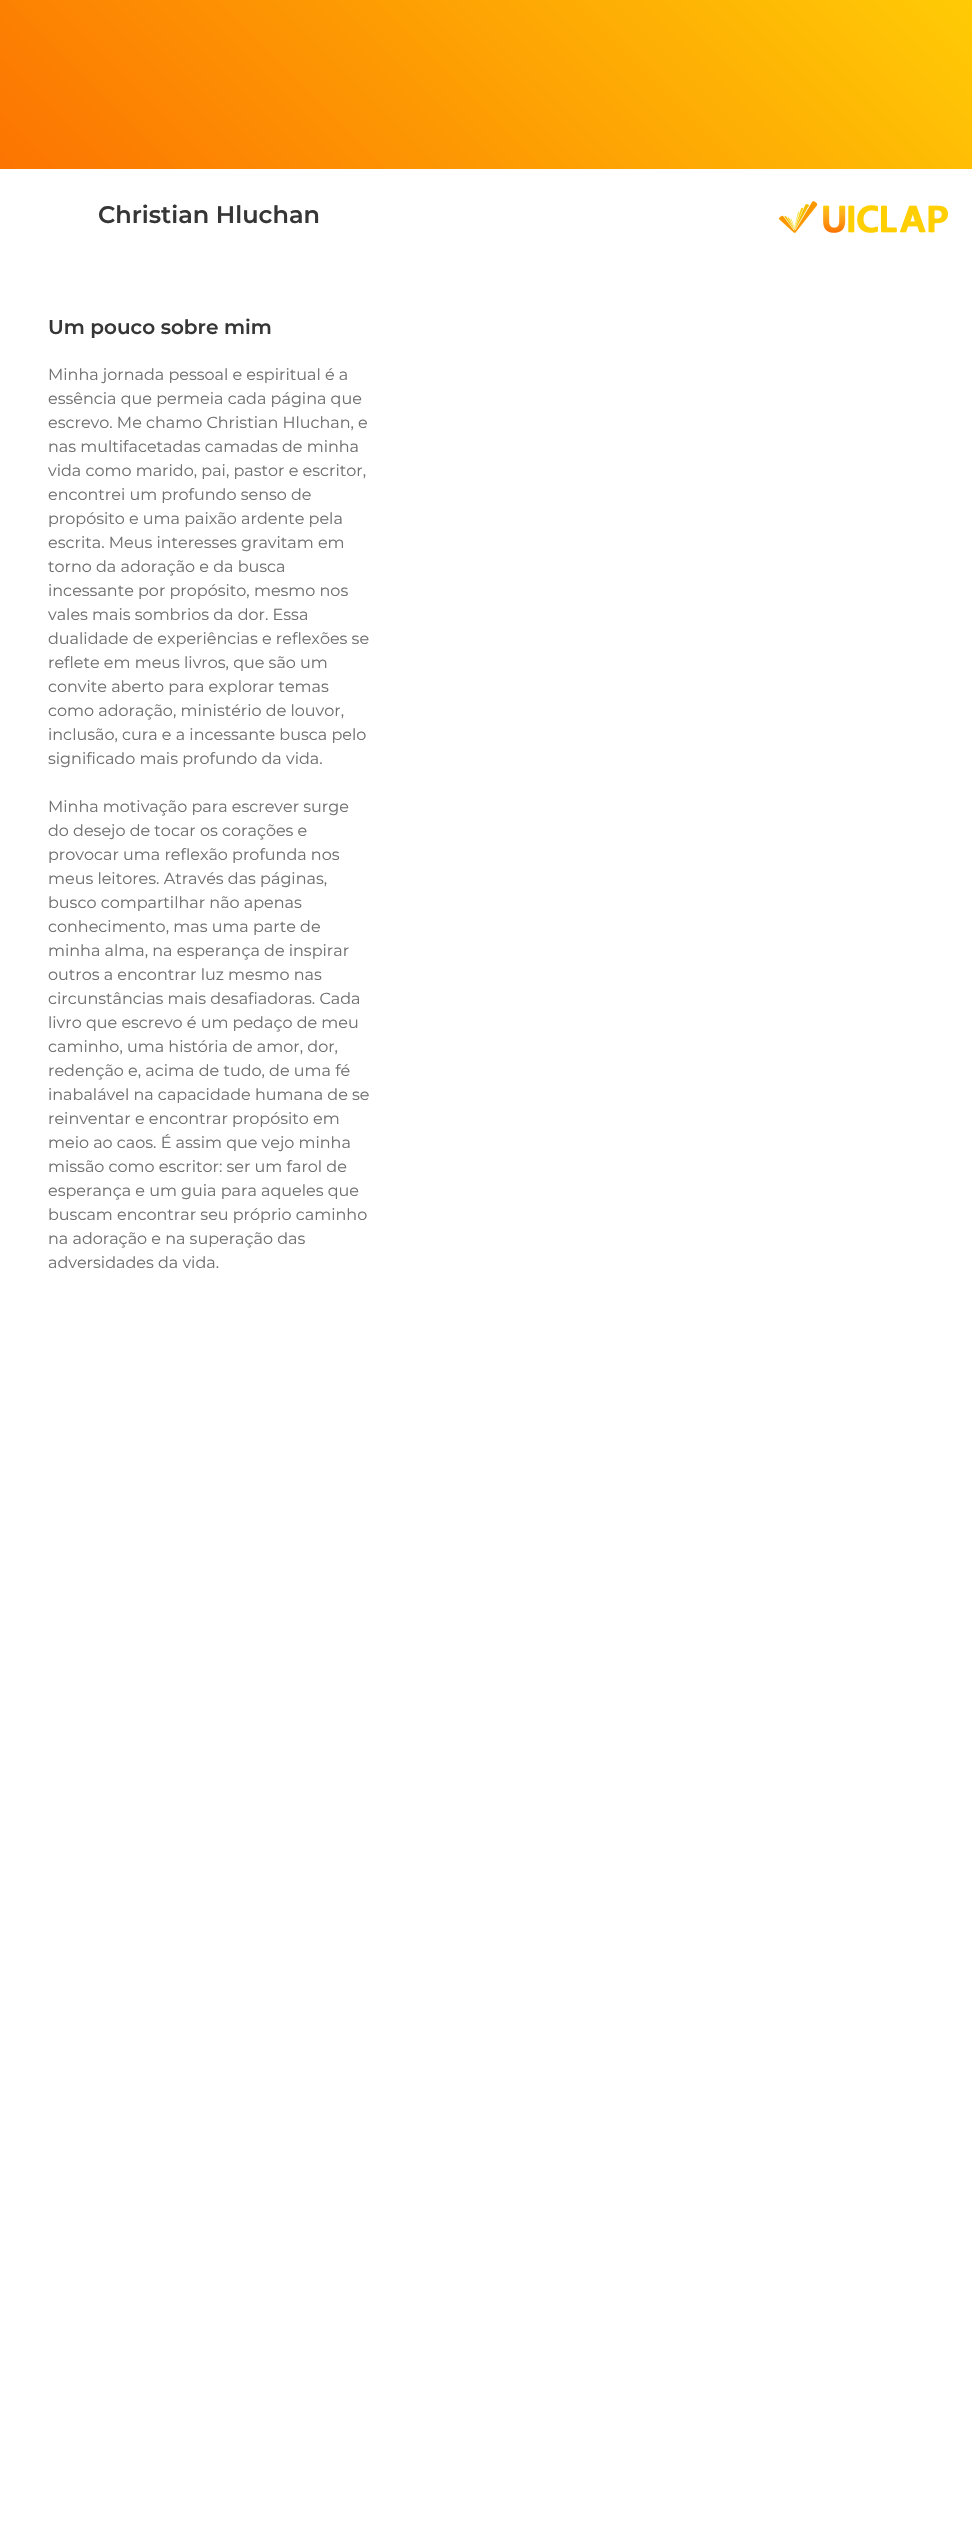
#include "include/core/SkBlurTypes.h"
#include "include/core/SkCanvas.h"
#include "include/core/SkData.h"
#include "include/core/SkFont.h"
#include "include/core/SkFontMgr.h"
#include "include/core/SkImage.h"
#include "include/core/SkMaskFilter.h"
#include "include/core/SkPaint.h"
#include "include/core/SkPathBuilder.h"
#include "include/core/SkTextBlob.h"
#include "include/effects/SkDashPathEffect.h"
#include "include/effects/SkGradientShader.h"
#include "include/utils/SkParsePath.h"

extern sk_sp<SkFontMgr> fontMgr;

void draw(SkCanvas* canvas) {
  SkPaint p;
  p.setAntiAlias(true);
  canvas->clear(SK_ColorWHITE);
  {
    const SkColor colors[] = {SkColorSetRGB(252, 116, 2), SkColorSetRGB(255, 203, 5)};
    const float stops[] = {0, 1};
    const SkPoint ends[] = {{201, 370}, {771, -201}};
    p.setShader(SkGradientShader::MakeLinear(ends, colors, stops, 2, SkTileMode::kClamp));
    p.setAlpha(255);
  }
  canvas->drawRect(SkRect::MakeLTRB(0, 0, 972, 169), p);
  canvas->drawImageRect(SkImages::DeferredFromEncodedData(SkData::MakeFromFileName("images/1.png")), SkRect::MakeLTRB(779, 201, 948, 233), SkSamplingOptions());
  SkFont font1(fontMgr->matchFamilyStyle("Montserrat", SkFontStyle(600, SkFontStyle::kNormal_Width, SkFontStyle::kUpright_Slant)), 24);
  font1.setSubpixel(true);
  p.setShader(nullptr);
  p.setColor(SkColorSetRGB(54, 54, 54));
  canvas->drawString("Christian Hluchan", 98, 223, font1, p);
  SkFont font2(fontMgr->matchFamilyStyle("Montserrat", SkFontStyle(600, SkFontStyle::kNormal_Width, SkFontStyle::kUpright_Slant)), 20);
  font2.setSubpixel(true);
  canvas->drawString("Um pouco sobre mim", 48, 334, font2, p);
  SkFont font3(fontMgr->matchFamilyStyle("Montserrat", SkFontStyle::Normal()), 16);
  font3.setSubpixel(true);
  p.setColor(SkColorSetRGB(112, 112, 112));
  canvas->drawString("Minha jornada pessoal e espiritual é a", 48, 380, font3, p);
  canvas->drawString("essência que permeia cada página que", 48, 404, font3, p);
  canvas->drawString("escrevo. Me chamo Christian Hluchan, e", 48, 428, font3, p);
  canvas->drawString("nas multifacetadas camadas de minha", 48, 452, font3, p);
  canvas->drawString("vida como marido, pai, pastor e escritor,", 48, 476, font3, p);
  canvas->drawString("encontrei um profundo senso de", 48, 500, font3, p);
  canvas->drawString("propósito e uma paixão ardente pela", 48, 524, font3, p);
  canvas->drawString("escrita. Meus interesses gravitam em", 48, 548, font3, p);
  canvas->drawString("torno da adoração e da busca", 48, 572, font3, p);
  canvas->drawString("incessante por propósito, mesmo nos", 48, 596, font3, p);
  canvas->drawString("vales mais sombrios da dor. Essa", 48, 620, font3, p);
  canvas->drawString("dualidade de experiências e reflexões se", 48, 644, font3, p);
  canvas->drawString("reflete em meus livros, que são um", 48, 668, font3, p);
  canvas->drawString("convite aberto para explorar temas", 48, 692, font3, p);
  canvas->drawString("como adoração, ministério de louvor,", 48, 716, font3, p);
  canvas->drawString("inclusão, cura e a incessante busca pelo", 48, 740, font3, p);
  canvas->drawString("significado mais profundo da vida.", 48, 764, font3, p);
  canvas->drawString("Minha motivação para escrever surge", 48, 812, font3, p);
  canvas->drawString("do desejo de tocar os corações e", 48, 836, font3, p);
  canvas->drawString("provocar uma reflexão profunda nos", 48, 860, font3, p);
  canvas->drawString("meus leitores. Através das páginas,", 48, 884, font3, p);
  canvas->drawString("busco compartilhar não apenas", 48, 908, font3, p);
  canvas->drawString("conhecimento, mas uma parte de", 48, 932, font3, p);
  canvas->drawString("minha alma, na esperança de inspirar", 48, 956, font3, p);
  canvas->drawString("outros a encontrar luz mesmo nas", 48, 980, font3, p);
  canvas->drawString("circunstâncias mais desafiadoras. Cada", 48, 1004, font3, p);
  canvas->drawString("livro que escrevo é um pedaço de meu", 48, 1028, font3, p);
  canvas->drawString("caminho, uma história de amor, dor,", 48, 1052, font3, p);
  canvas->drawString("redenção e, acima de tudo, de uma fé", 48, 1076, font3, p);
  canvas->drawString("inabalável na capacidade humana de se", 48, 1100, font3, p);
  canvas->drawString("reinventar e encontrar propósito em", 48, 1124, font3, p);
  canvas->drawString("meio ao caos. É assim que vejo minha", 48, 1148, font3, p);
  canvas->drawString("missão como escritor: ser um farol de", 48, 1172, font3, p);
  canvas->drawString("esperança e um guia para aqueles que", 48, 1196, font3, p);
  canvas->drawString("buscam encontrar seu próprio caminho", 48, 1220, font3, p);
  canvas->drawString("na adoração e na superação das", 48, 1244, font3, p);
  canvas->drawString("adversidades da vida.", 48, 1268, font3, p);
}
